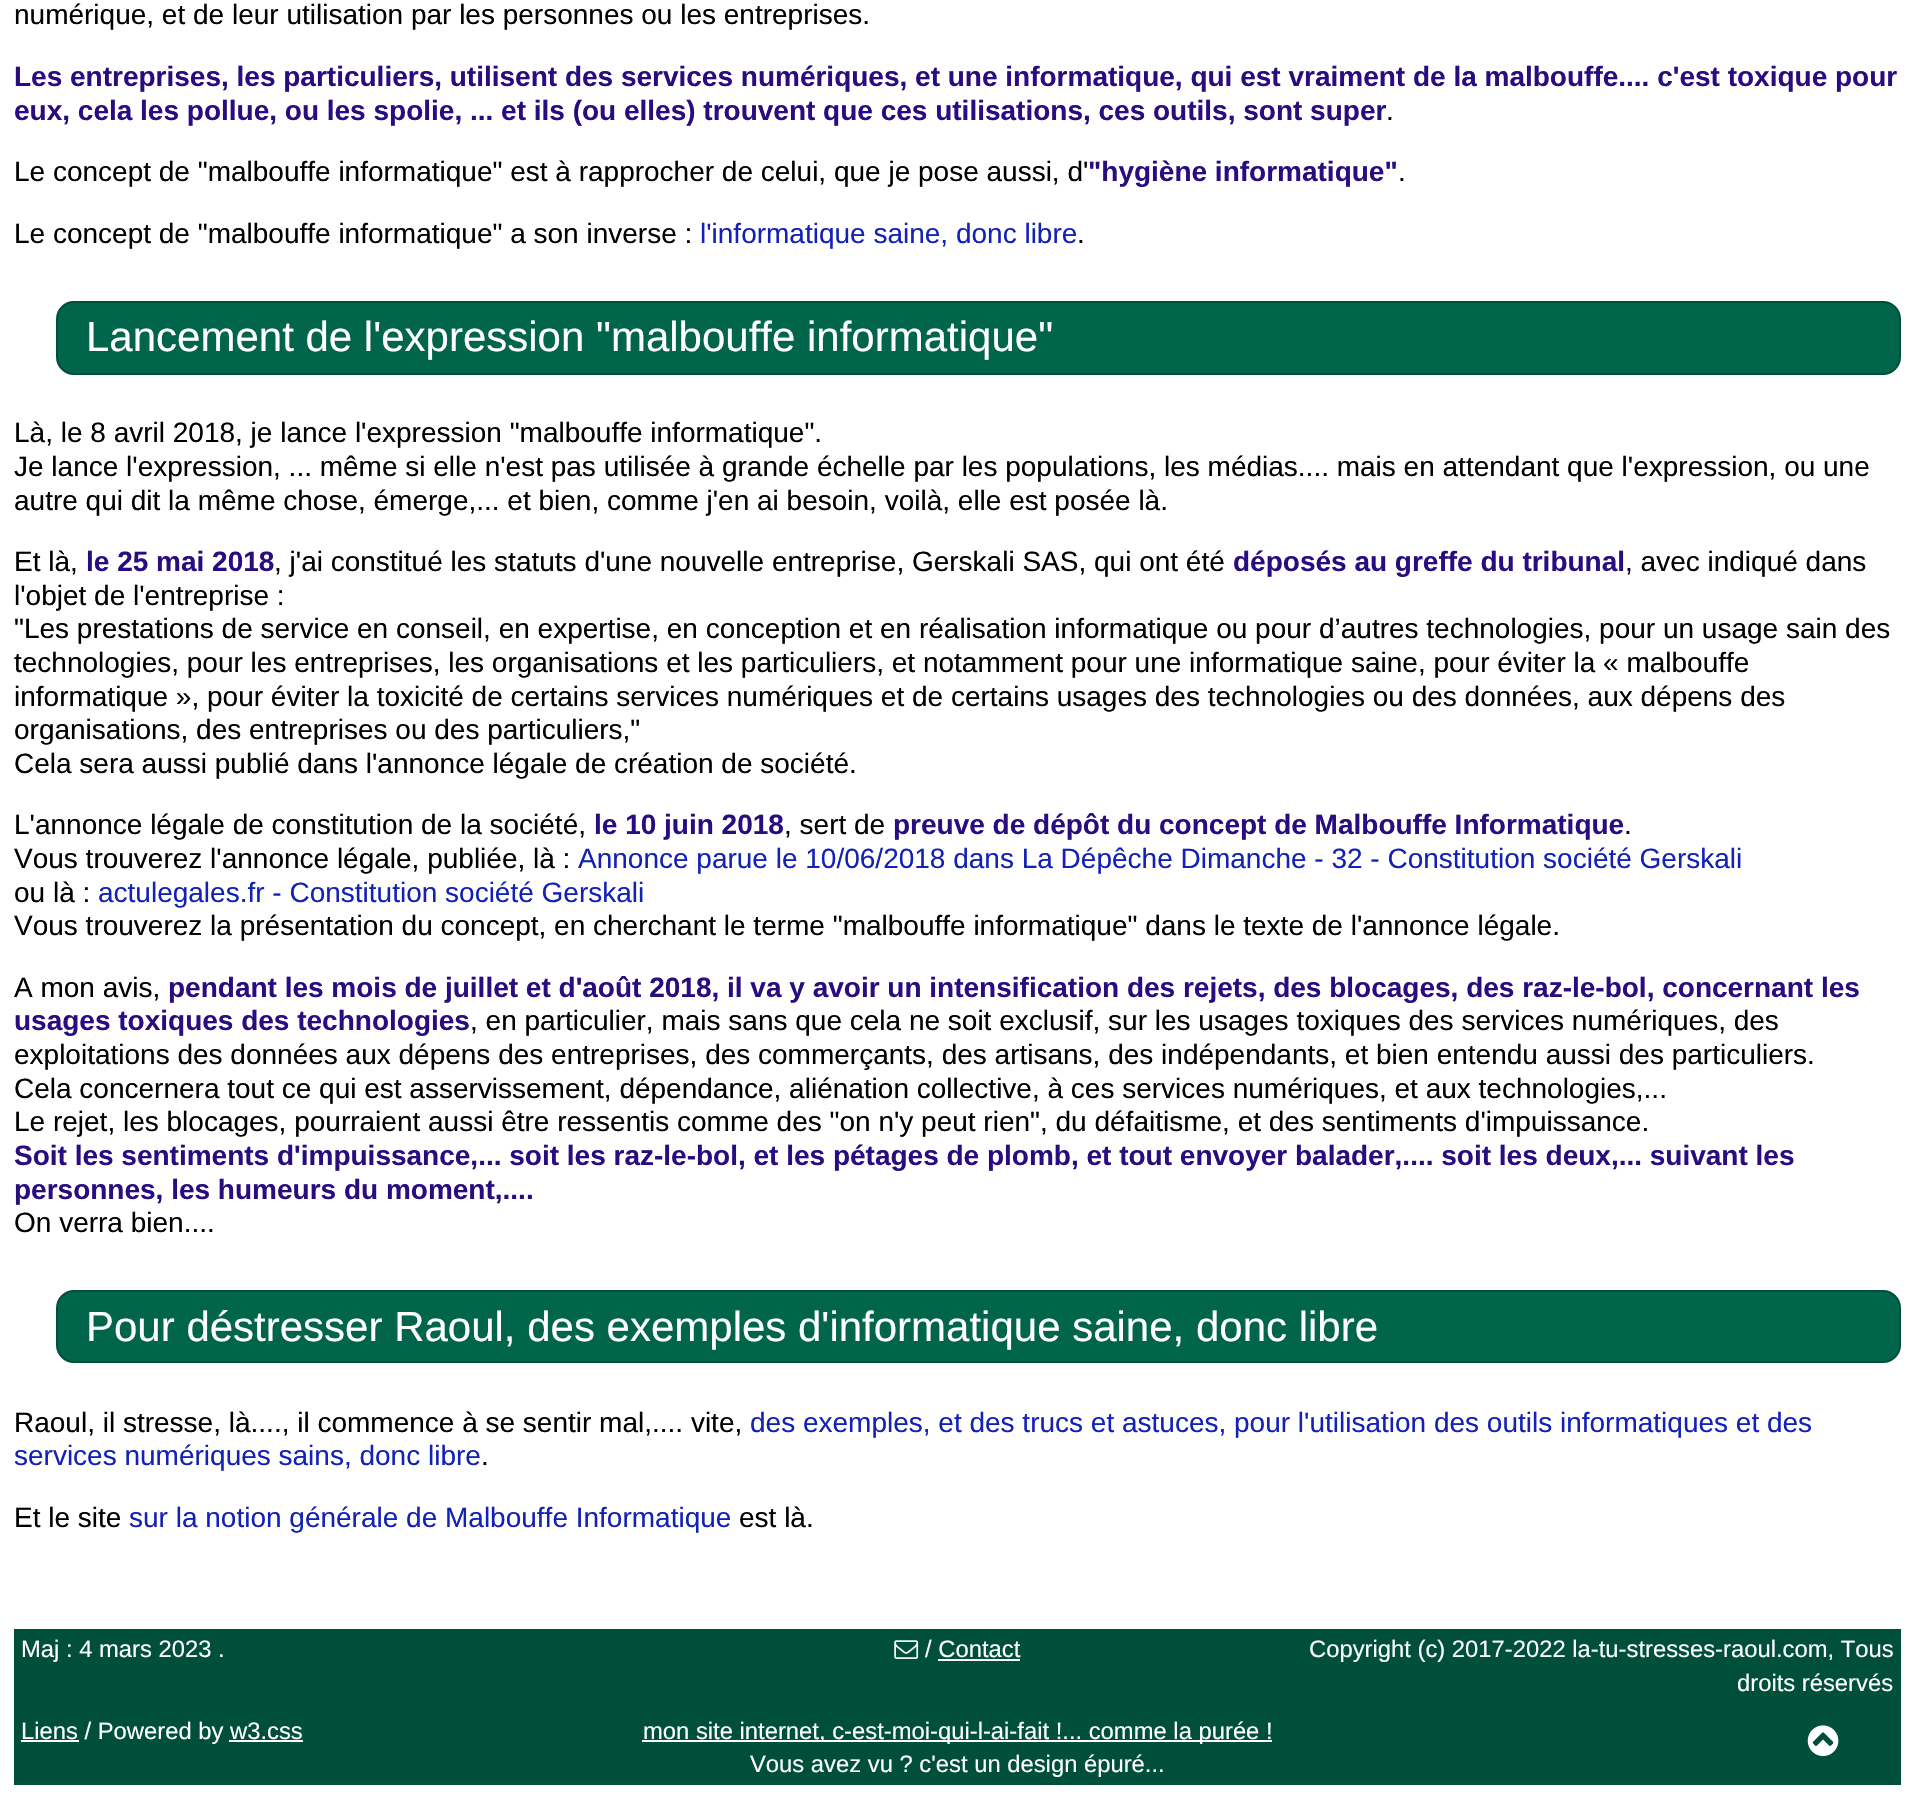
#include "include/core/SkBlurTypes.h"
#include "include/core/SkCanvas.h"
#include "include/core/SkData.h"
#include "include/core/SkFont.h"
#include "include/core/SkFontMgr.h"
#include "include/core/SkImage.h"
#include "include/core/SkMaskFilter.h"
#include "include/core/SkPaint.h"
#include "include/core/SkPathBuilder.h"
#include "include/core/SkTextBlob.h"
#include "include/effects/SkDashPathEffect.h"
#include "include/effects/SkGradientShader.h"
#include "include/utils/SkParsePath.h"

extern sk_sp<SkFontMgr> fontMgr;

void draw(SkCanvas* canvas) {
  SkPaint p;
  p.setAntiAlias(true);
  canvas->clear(SK_ColorWHITE);
  p.setColor(SkColorSetRGB(0, 101, 74));
  canvas->drawRoundRect(SkRect::MakeLTRB(57, 302, 1900, 374), 17, 17, p);
  p.setStyle(SkPaint::kStroke_Style);
  p.setStrokeWidth(2);
  p.setColor(SkColorSetRGB(0, 79, 58));
  canvas->drawRoundRect(SkRect::MakeLTRB(57, 302, 1900, 374), 17, 17, p);
  p.setStyle(SkPaint::kFill_Style);
  p.setColor(SkColorSetRGB(0, 101, 74));
  canvas->drawRoundRect(SkRect::MakeLTRB(57, 1291, 1900, 1362), 17, 17, p);
  p.setStyle(SkPaint::kStroke_Style);
  p.setColor(SkColorSetRGB(0, 79, 58));
  canvas->drawRoundRect(SkRect::MakeLTRB(57, 1291, 1900, 1362), 17, 17, p);
  p.setStyle(SkPaint::kFill_Style);
  canvas->drawRect(SkRect::MakeLTRB(14, 1629, 1901, 1785), p);
  canvas->drawImageRect(SkImages::DeferredFromEncodedData(SkData::MakeFromFileName("images/1.png")), SkRect::MakeLTRB(894, 1640, 919, 1659), SkSamplingOptions());
  p.setColor(SK_ColorWHITE);
  canvas->drawRect(SkRect::MakeLTRB(938, 1659, 1020, 1661), p);
  canvas->drawRect(SkRect::MakeLTRB(21, 1740, 79, 1742), p);
  canvas->drawRect(SkRect::MakeLTRB(229, 1740, 303, 1742), p);
  canvas->drawRect(SkRect::MakeLTRB(642, 1740, 1272, 1742), p);
  canvas->drawImageRect(SkImages::DeferredFromEncodedData(SkData::MakeFromFileName("images/2.png")), SkRect::MakeLTRB(1807, 1725, 1839, 1757), SkSamplingOptions());
  SkFont font1(fontMgr->matchFamilyStyle("Liberation Sans", SkFontStyle::Normal()), 28);
  font1.setSubpixel(true);
  p.setColor(SK_ColorBLACK);
  canvas->drawString("numérique, et de leur utilisation par les personnes ou les entreprises.", 14, 24, font1, p);
  SkFont font2(fontMgr->matchFamilyStyle("Liberation Sans", SkFontStyle::Bold()), 28);
  font2.setSubpixel(true);
  p.setColor(SkColorSetRGB(41, 12, 127));
  canvas->drawString("Les entreprises, les particuliers, utilisent des services numériques, et une informatique, qui est vraiment de la malbouffe.... c'est toxique pour", 14, 86, font2, p);
  canvas->drawString("eux, cela les pollue, ou les spolie, ... et ils (ou elles) trouvent que ces utilisations, ces outils, sont super", 14, 120, font2, p);
  p.setColor(SK_ColorBLACK);
  canvas->drawString(".", 1386, 120, font1, p);
  canvas->drawString("Le concept de \"malbouffe informatique\" est à rapprocher de celui, que je pose aussi, d'", 14, 181, font1, p);
  p.setColor(SkColorSetRGB(41, 12, 127));
  canvas->drawString("\"hygiène informatique\"", 1088, 181, font2, p);
  p.setColor(SK_ColorBLACK);
  canvas->drawString(".", 1398, 181, font1, p);
  canvas->drawString("Le concept de \"malbouffe informatique\" a son inverse :", 14, 243, font1, p);
  p.setColor(SkColorSetRGB(19, 33, 183));
  canvas->drawString("l'informatique saine, donc libre", 700, 243, font1, p);
  p.setColor(SK_ColorBLACK);
  canvas->drawString(".", 1077, 243, font1, p);
  SkFont font3(fontMgr->matchFamilyStyle("Liberation Sans", SkFontStyle::Normal()), 42);
  font3.setSubpixel(true);
  p.setColor(SK_ColorWHITE);
  canvas->drawString("Lancement de l'expression \"malbouffe informatique\"", 86, 351, font3, p);
  p.setColor(SK_ColorBLACK);
  canvas->drawString("Là, le 8 avril 2018, je lance l'expression \"malbouffe informatique\".", 14, 442, font1, p);
  canvas->drawString("Je lance l'expression, ... même si elle n'est pas utilisée à grande échelle par les populations, les médias.... mais en attendant que l'expression, ou une", 14, 476, font1, p);
  canvas->drawString("autre qui dit la même chose, émerge,... et bien, comme j'en ai besoin, voilà, elle est posée là.", 14, 510, font1, p);
  canvas->drawString("Et là,", 14, 571, font1, p);
  p.setColor(SkColorSetRGB(41, 12, 127));
  canvas->drawString("le 25 mai 2018", 86, 571, font2, p);
  p.setColor(SK_ColorBLACK);
  canvas->drawString(", j'ai constitué les statuts d'une nouvelle entreprise, Gerskali SAS, qui ont été", 274, 571, font1, p);
  p.setColor(SkColorSetRGB(41, 12, 127));
  canvas->drawString("déposés au greffe du tribunal", 1233, 571, font2, p);
  p.setColor(SK_ColorBLACK);
  canvas->drawString(", avec indiqué dans", 1625, 571, font1, p);
  canvas->drawString("l'objet de l'entreprise :", 14, 605, font1, p);
  canvas->drawString("\"Les prestations de service en conseil, en expertise, en conception et en réalisation informatique ou pour d’autres technologies, pour un usage sain des", 14, 638, font1, p);
  canvas->drawString("technologies, pour les entreprises, les organisations et les particuliers, et notamment pour une informatique saine, pour éviter la « malbouffe", 14, 672, font1, p);
  canvas->drawString("informatique », pour éviter la toxicité de certains services numériques et de certains usages des technologies ou des données, aux dépens des", 14, 706, font1, p);
  canvas->drawString("organisations, des entreprises ou des particuliers,\"", 14, 739, font1, p);
  canvas->drawString("Cela sera aussi publié dans l'annonce légale de création de société.", 14, 773, font1, p);
  canvas->drawString("L'annonce légale de constitution de la société,", 14, 834, font1, p);
  p.setColor(SkColorSetRGB(41, 12, 127));
  canvas->drawString("le 10 juin 2018", 594, 834, font2, p);
  p.setColor(SK_ColorBLACK);
  canvas->drawString(", sert de", 784, 834, font1, p);
  p.setColor(SkColorSetRGB(41, 12, 127));
  canvas->drawString("preuve de dépôt du concept de Malbouffe Informatique", 893, 834, font2, p);
  p.setColor(SK_ColorBLACK);
  canvas->drawString(".", 1624, 834, font1, p);
  canvas->drawString("Vous trouverez l'annonce légale, publiée, là :", 14, 868, font1, p);
  p.setColor(SkColorSetRGB(19, 33, 183));
  canvas->drawString("Annonce parue le 10/06/2018 dans La Dépêche Dimanche - 32 - Constitution société Gerskali", 578, 868, font1, p);
  p.setColor(SK_ColorBLACK);
  canvas->drawString("ou là :", 14, 902, font1, p);
  p.setColor(SkColorSetRGB(19, 33, 183));
  canvas->drawString("actulegales.fr - Constitution société Gerskali", 98, 902, font1, p);
  p.setColor(SK_ColorBLACK);
  canvas->drawString("Vous trouverez la présentation du concept, en cherchant le terme \"malbouffe informatique\" dans le texte de l'annonce légale.", 14, 935, font1, p);
  canvas->drawString("A mon avis,", 14, 997, font1, p);
  p.setColor(SkColorSetRGB(41, 12, 127));
  canvas->drawString("pendant les mois de juillet et d'août 2018, il va y avoir un intensification des rejets, des blocages, des raz-le-bol, concernant les", 168, 997, font2, p);
  canvas->drawString("usages toxiques des technologies", 14, 1030, font2, p);
  p.setColor(SK_ColorBLACK);
  canvas->drawString(", en particulier, mais sans que cela ne soit exclusif, sur les usages toxiques des services numériques, des", 470, 1030, font1, p);
  canvas->drawString("exploitations des données aux dépens des entreprises, des commerçants, des artisans, des indépendants, et bien entendu aussi des particuliers.", 14, 1064, font1, p);
  canvas->drawString("Cela concernera tout ce qui est asservissement, dépendance, aliénation collective, à ces services numériques, et aux technologies,...", 14, 1098, font1, p);
  canvas->drawString("Le rejet, les blocages, pourraient aussi être ressentis comme des \"on n'y peut rien\", du défaitisme, et des sentiments d'impuissance.", 14, 1131, font1, p);
  p.setColor(SkColorSetRGB(41, 12, 127));
  canvas->drawString("Soit les sentiments d'impuissance,... soit les raz-le-bol, et les pétages de plomb, et tout envoyer balader,.... soit les deux,... suivant les", 14, 1165, font2, p);
  canvas->drawString("personnes, les humeurs du moment,....", 14, 1199, font2, p);
  p.setColor(SK_ColorBLACK);
  canvas->drawString("On verra bien....", 14, 1232, font1, p);
  p.setColor(SK_ColorWHITE);
  canvas->drawString("Pour déstresser Raoul, des exemples d'informatique saine, donc libre", 86, 1341, font3, p);
  p.setColor(SK_ColorBLACK);
  canvas->drawString("Raoul, il stresse, là...., il commence à se sentir mal,.... vite,", 14, 1432, font1, p);
  p.setColor(SkColorSetRGB(19, 33, 183));
  canvas->drawString("des exemples, et des trucs et astuces, pour l'utilisation des outils informatiques et des", 750, 1432, font1, p);
  canvas->drawString("services numériques sains, donc libre", 14, 1465, font1, p);
  p.setColor(SK_ColorBLACK);
  canvas->drawString(".", 481, 1465, font1, p);
  canvas->drawString("Et le site", 14, 1527, font1, p);
  p.setColor(SkColorSetRGB(19, 33, 183));
  canvas->drawString("sur la notion générale de Malbouffe Informatique", 129, 1527, font1, p);
  p.setColor(SK_ColorBLACK);
  canvas->drawString("est là.", 739, 1527, font1, p);
  SkFont font4(fontMgr->matchFamilyStyle("Liberation Sans", SkFontStyle::Normal()), 23.8f);
  font4.setSubpixel(true);
  p.setColor(SK_ColorWHITE);
  canvas->drawString("Maj : 4 mars 2023 .", 21, 1657, font4, p);
  canvas->drawString("/ Contact", 925, 1657, font4, p);
  canvas->drawString("Copyright (c) 2017-2022 la-tu-stresses-raoul.com, Tous", 1309, 1657, font4, p);
  canvas->drawString("droits réservés", 1737, 1691, font4, p);
  canvas->drawString("Liens / Powered by w3.css", 21, 1739, font4, p);
  canvas->drawString("mon site internet, c-est-moi-qui-l-ai-fait !... comme la purée !", 643, 1739, font4, p);
  canvas->drawString("Vous avez vu ? c'est un design épuré...", 750, 1772, font4, p);
}
